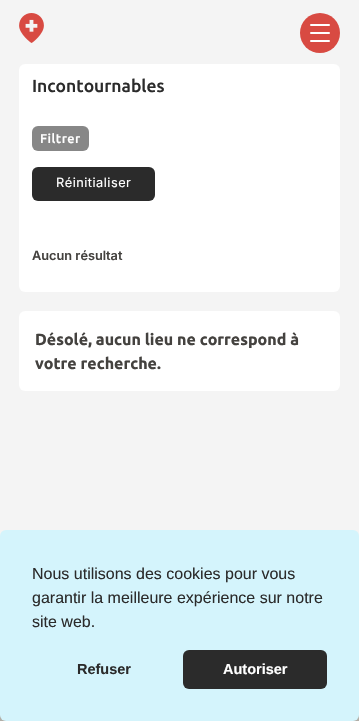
#include "include/core/SkBlurTypes.h"
#include "include/core/SkCanvas.h"
#include "include/core/SkData.h"
#include "include/core/SkFont.h"
#include "include/core/SkFontMgr.h"
#include "include/core/SkImage.h"
#include "include/core/SkMaskFilter.h"
#include "include/core/SkPaint.h"
#include "include/core/SkPathBuilder.h"
#include "include/core/SkTextBlob.h"
#include "include/effects/SkDashPathEffect.h"
#include "include/effects/SkGradientShader.h"
#include "include/utils/SkParsePath.h"

extern sk_sp<SkFontMgr> fontMgr;

void draw(SkCanvas* canvas) {
  SkPaint p;
  p.setAntiAlias(true);
  auto spacedText = [&](const char* s, float x, float y, const SkFont& font, const SkPaint& ink, float letter, float word) {
    std::vector<SkGlyphID> glyphs(font.countText(s, strlen(s), SkTextEncoding::kUTF8));
    std::vector<float> xs(glyphs.size());
    font.textToGlyphs(s, strlen(s), SkTextEncoding::kUTF8, glyphs);
    font.getXPos(glyphs, xs, x);
    float extra = 0;
    for (size_t i = 0; i < glyphs.size(); i++) {
      xs[i] += extra;
      extra += letter + word * (glyphs[i] == font.unicharToGlyph(' '));
    }
    canvas->drawTextBlob(SkTextBlob::MakeFromPosHGlyphs(glyphs, xs, y, font), 0, 0, ink);
  };
  canvas->clear(SkColorSetRGB(244, 244, 244));
  canvas->drawImageRect(SkImages::DeferredFromEncodedData(SkData::MakeFromFileName("images/1.png")), SkRect::MakeLTRB(19, 13, 44, 43), SkSamplingOptions());
  p.setColor(SkColorSetRGB(216, 74, 66));
  canvas->drawCircle(320, 33, 20, p);
  p.setColor(SK_ColorWHITE);
  canvas->drawRoundRect(SkRect::MakeLTRB(310, 24, 330, 26), 1, 1, p);
  canvas->drawRoundRect(SkRect::MakeLTRB(310, 32, 330, 34), 1, 1, p);
  canvas->drawRoundRect(SkRect::MakeLTRB(310, 40, 330, 42), 1, 1, p);
  canvas->drawRoundRect(SkRect::MakeLTRB(19, 64, 340, 292), 6, 6, p);
  p.setColor(SkColorSetRGB(135, 135, 135));
  canvas->drawRoundRect(SkRect::MakeLTRB(32, 126, 89, 151), 6, 6, p);
  p.setColor(SkColorSetRGB(43, 43, 43));
  canvas->drawRoundRect(SkRect::MakeLTRB(32, 167, 155, 201), 6, 6, p);
  p.setColor(SK_ColorWHITE);
  canvas->drawRoundRect(SkRect::MakeLTRB(19, 311, 340, 391), 6, 6, p);
  p.setColor(SkColorSetRGB(178, 174, 167));
  canvas->drawRect(SkRect::MakeLTRB(0, 715, 359, 721), p);
  p.setColor(SkColorSetRGB(212, 244, 252));
  canvas->drawRoundRect(SkRect::MakeLTRB(0, 530, 359, 721), 6, 6, p);
  p.setColor(SkColorSetRGB(43, 43, 43));
  canvas->drawRoundRect(SkRect::MakeLTRB(183, 650, 327, 689), 6, 6, p);
  SkFont font1(fontMgr->matchFamilyStyle("Ubuntu", SkFontStyle(500, SkFontStyle::kNormal_Width, SkFontStyle::kUpright_Slant)), 17.5f);
  font1.setSubpixel(true);
  canvas->drawString("Incontournables", 32, 92, font1, p);
  SkFont font2(fontMgr->matchFamilyStyle("Ubuntu", SkFontStyle(500, SkFontStyle::kNormal_Width, SkFontStyle::kUpright_Slant)), 12.75f);
  font2.setSubpixel(true);
  p.setColor(SK_ColorWHITE);
  spacedText("Filtrer", 40, 143, font2, p, 0.5f, 0);
  SkFont font3(fontMgr->matchFamilyStyle("Inter", SkFontStyle::Normal()), 12.75f);
  font3.setSubpixel(true);
  spacedText("Réinitialiser", 56, 187, font3, p, 0.5f, 0);
  SkFont font4(fontMgr->matchFamilyStyle("Inter", SkFontStyle(600, SkFontStyle::kNormal_Width, SkFontStyle::kUpright_Slant)), 12.75f);
  font4.setSubpixel(true);
  p.setColor(SkColorSetRGB(68, 66, 63));
  canvas->drawString("Aucun résultat", 32, 260, font4, p);
  SkFont font5(fontMgr->matchFamilyStyle("Ubuntu", SkFontStyle::Bold()), 16);
  font5.setSubpixel(true);
  canvas->drawString("Désolé, aucun lieu ne correspond à", 35, 345, font5, p);
  canvas->drawString("votre recherche.", 35, 369, font5, p);
  SkFont font6(fontMgr->matchFamilyStyle("Liberation Sans", SkFontStyle::Normal()), 16);
  font6.setSubpixel(true);
  p.setColor(SkColorSetRGB(43, 43, 43));
  canvas->drawString("Nous utilisons des cookies pour vous", 32, 579, font6, p);
  canvas->drawString("garantir la meilleure expérience sur notre", 32, 603, font6, p);
  canvas->drawString("site web.", 32, 627, font6, p);
  SkFont font7(fontMgr->matchFamilyStyle("Liberation Sans", SkFontStyle::Bold()), 14.5f);
  font7.setSubpixel(true);
  canvas->drawString("Refuser", 77, 674, font7, p);
  p.setColor(SK_ColorWHITE);
  canvas->drawString("Autoriser", 223, 674, font7, p);
}
